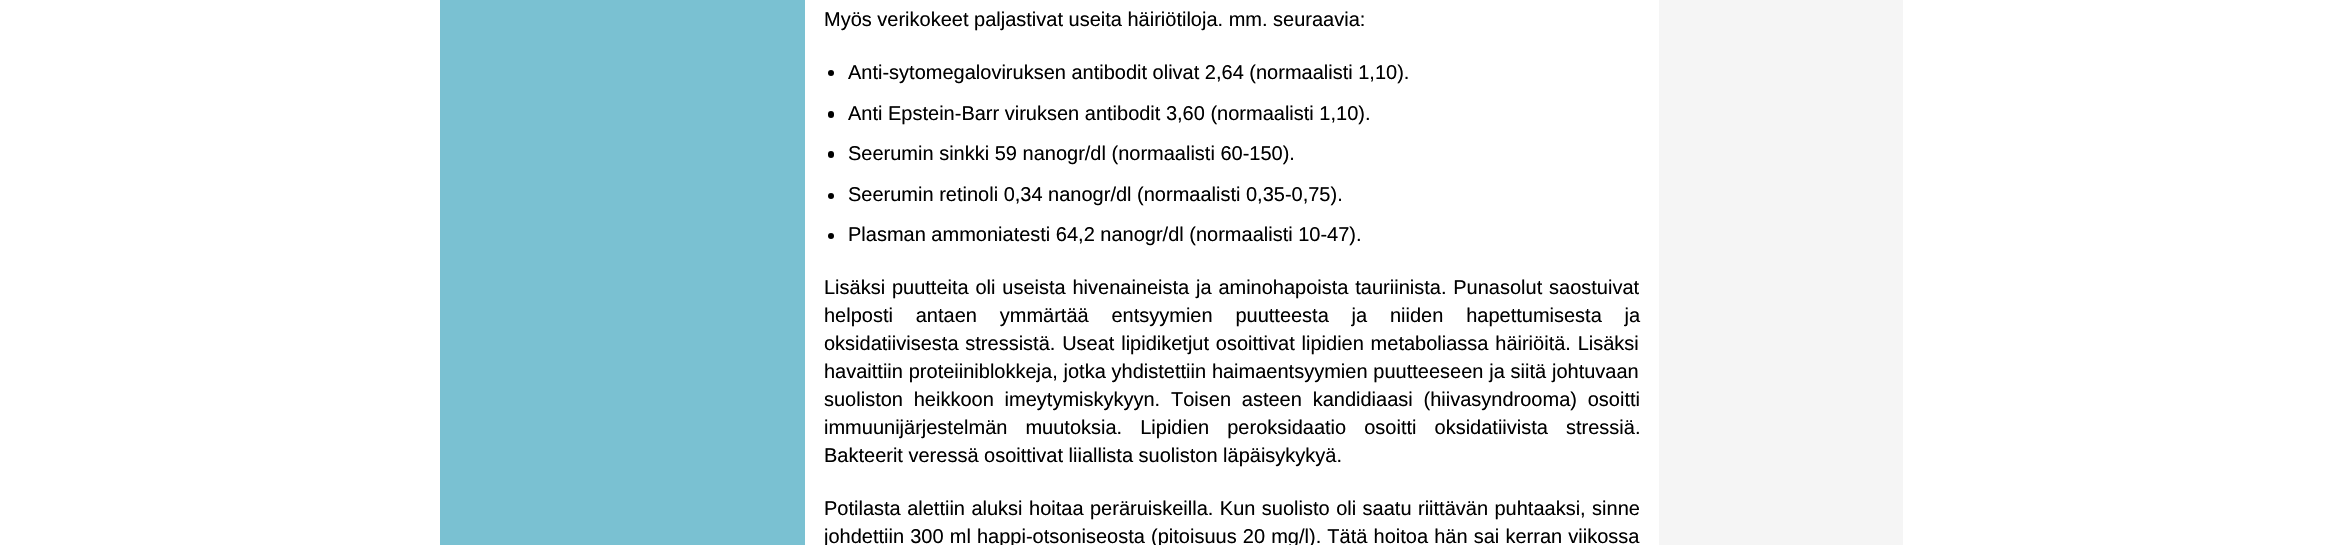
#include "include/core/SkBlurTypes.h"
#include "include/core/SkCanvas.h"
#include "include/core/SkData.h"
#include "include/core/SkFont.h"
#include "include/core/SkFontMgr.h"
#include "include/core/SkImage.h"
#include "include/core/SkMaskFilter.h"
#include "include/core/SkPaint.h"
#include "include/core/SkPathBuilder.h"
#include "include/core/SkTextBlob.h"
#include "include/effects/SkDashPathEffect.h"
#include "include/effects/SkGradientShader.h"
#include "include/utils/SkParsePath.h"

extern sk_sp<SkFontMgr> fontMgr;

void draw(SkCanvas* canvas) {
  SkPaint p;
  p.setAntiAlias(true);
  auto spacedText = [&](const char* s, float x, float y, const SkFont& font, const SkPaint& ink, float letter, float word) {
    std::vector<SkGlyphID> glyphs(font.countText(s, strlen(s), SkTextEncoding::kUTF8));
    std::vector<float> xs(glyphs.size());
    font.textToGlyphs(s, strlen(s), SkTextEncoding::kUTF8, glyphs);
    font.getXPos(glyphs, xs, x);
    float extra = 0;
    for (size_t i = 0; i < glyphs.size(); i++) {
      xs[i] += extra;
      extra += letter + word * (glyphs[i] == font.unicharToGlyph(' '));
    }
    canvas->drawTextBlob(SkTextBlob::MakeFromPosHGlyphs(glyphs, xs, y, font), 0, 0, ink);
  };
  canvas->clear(SK_ColorWHITE);
  p.setColor(SkColorSetRGB(122, 193, 210));
  canvas->drawRect(SkRect::MakeLTRB(440, 0, 805, 545), p);
  p.setColor(SK_ColorBLACK);
  canvas->drawCircle(831, 73, 3, p);
  canvas->drawRoundRect(SkRect::MakeLTRB(828, 111, 834, 118), 3, 3, p);
  canvas->drawRoundRect(SkRect::MakeLTRB(828, 151, 834, 158), 3, 3, p);
  canvas->drawCircle(831, 196, 3, p);
  canvas->drawCircle(831, 236, 3, p);
  p.setColor(SkColorSetRGB(245, 245, 245));
  canvas->drawRect(SkRect::MakeLTRB(1659, 0, 1903, 545), p);
  SkFont font1(fontMgr->matchFamilyStyle("Liberation Sans", SkFontStyle::Normal()), 20);
  font1.setSubpixel(true);
  p.setColor(SK_ColorBLACK);
  canvas->drawString("Myös verikokeet paljastivat useita häiriötiloja. mm. seuraavia:", 824, 26, font1, p);
  canvas->drawString("Anti-sytomegaloviruksen antibodit olivat 2,64 (normaalisti 1,10).", 848, 79, font1, p);
  canvas->drawString("Anti Epstein-Barr viruksen antibodit 3,60 (normaalisti 1,10).", 848, 120, font1, p);
  canvas->drawString("Seerumin sinkki 59 nanogr/dl (normaalisti 60-150).", 848, 160, font1, p);
  canvas->drawString("Seerumin retinoli 0,34 nanogr/dl (normaalisti 0,35-0,75).", 848, 201, font1, p);
  canvas->drawString("Plasman ammoniatesti 64,2 nanogr/dl (normaalisti 10-47).", 848, 241, font1, p);
  spacedText("Lisäksi puutteita oli useista hivenaineista ja aminohapoista tauriinista. Punasolut saostuivat", 824, 294, font1, p, 0, 1.25f);
  spacedText("helposti antaen ymmärtää entsyymien puutteesta ja niiden hapettumisesta ja", 824, 322, font1, p, 0, 17.25f);
  spacedText("oksidatiivisesta stressistä. Useat lipidiketjut osoittivat lipidien metaboliassa häiriöitä. Lisäksi", 824, 350, font1, p, 0, 1.25f);
  spacedText("havaittiin proteiiniblokkeja, jotka yhdistettiin haimaentsyymien puutteeseen ja siitä johtuvaan", 824, 378, font1, p, 0, 0.25f);
  spacedText("suoliston heikkoon imeytymiskykyyn. Toisen asteen kandidiaasi (hiivasyndrooma) osoitti", 824, 406, font1, p, 0, 5.25f);
  spacedText("immuunijärjestelmän muutoksia. Lipidien peroksidaatio osoitti oksidatiivista stressiä.", 824, 434, font1, p, 0, 12.5f);
  canvas->drawString("Bakteerit veressä osoittivat liiallista suoliston läpäisykykyä.", 824, 462, font1, p);
  spacedText("Potilasta alettiin aluksi hoitaa peräruiskeilla. Kun suolisto oli saatu riittävän puhtaaksi, sinne", 824, 515, font1, p, 0, 0.9f);
  spacedText("johdettiin 300 ml happi-otsoniseosta (pitoisuus 20 mg/l). Tätä hoitoa hän sai kerran viikossa", 824, 543, font1, p, 0, 0.6f);
}
